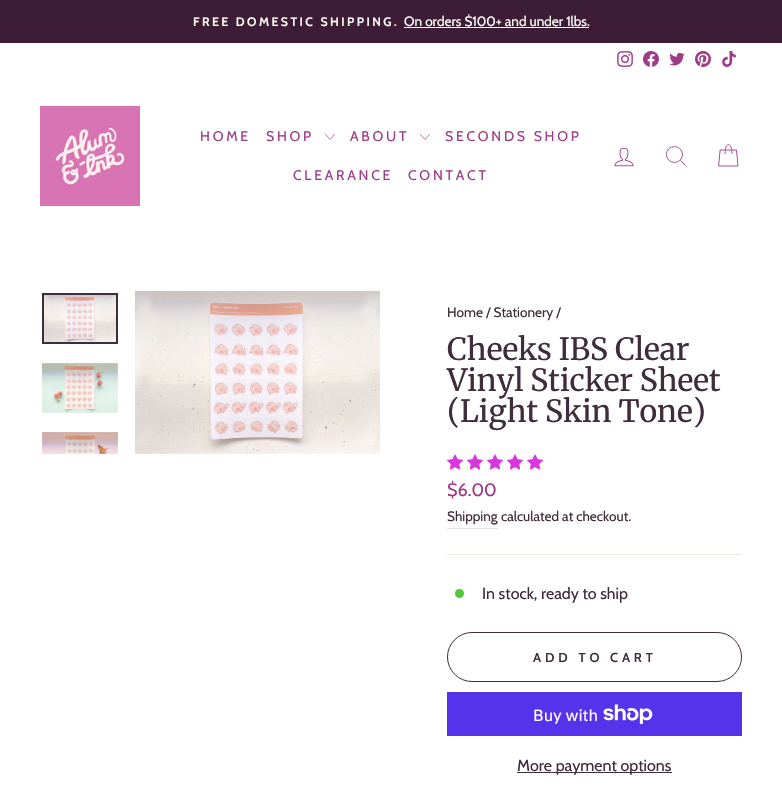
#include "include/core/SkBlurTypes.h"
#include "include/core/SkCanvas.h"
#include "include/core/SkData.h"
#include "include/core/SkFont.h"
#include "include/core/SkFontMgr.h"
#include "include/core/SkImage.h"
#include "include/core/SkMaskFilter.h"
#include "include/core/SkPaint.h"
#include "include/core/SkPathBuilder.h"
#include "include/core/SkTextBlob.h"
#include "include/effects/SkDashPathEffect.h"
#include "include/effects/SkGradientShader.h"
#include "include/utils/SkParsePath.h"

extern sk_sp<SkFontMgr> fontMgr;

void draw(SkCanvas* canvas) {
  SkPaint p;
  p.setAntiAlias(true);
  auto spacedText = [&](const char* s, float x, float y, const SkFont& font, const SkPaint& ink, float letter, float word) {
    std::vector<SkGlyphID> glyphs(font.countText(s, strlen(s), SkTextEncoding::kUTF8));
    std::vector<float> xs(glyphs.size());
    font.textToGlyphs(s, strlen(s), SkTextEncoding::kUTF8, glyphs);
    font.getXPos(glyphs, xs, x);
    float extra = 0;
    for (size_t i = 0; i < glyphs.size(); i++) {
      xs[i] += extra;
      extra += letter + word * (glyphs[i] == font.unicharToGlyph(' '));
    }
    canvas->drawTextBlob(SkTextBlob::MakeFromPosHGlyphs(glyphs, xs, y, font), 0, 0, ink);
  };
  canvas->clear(SK_ColorWHITE);
  p.setColor(SkColorSetRGB(61, 29, 53));
  canvas->drawRect(SkRect::MakeLTRB(0, 0, 782, 43), p);
  p.setColor(SK_ColorWHITE);
  canvas->drawRect(SkRect::MakeLTRB(404, 27, 589, 28), p);
  canvas->drawImageRect(SkImages::DeferredFromEncodedData(SkData::MakeFromFileName("images/1.png")), SkRect::MakeLTRB(617, 51, 633, 67), SkSamplingOptions());
  canvas->drawImageRect(SkImages::DeferredFromEncodedData(SkData::MakeFromFileName("images/2.png")), SkRect::MakeLTRB(643, 51, 659, 67), SkSamplingOptions());
  canvas->drawImageRect(SkImages::DeferredFromEncodedData(SkData::MakeFromFileName("images/3.png")), SkRect::MakeLTRB(669, 52, 685, 66), SkSamplingOptions());
  canvas->drawImageRect(SkImages::DeferredFromEncodedData(SkData::MakeFromFileName("images/4.png")), SkRect::MakeLTRB(695, 51, 711, 67), SkSamplingOptions());
  canvas->drawImageRect(SkImages::DeferredFromEncodedData(SkData::MakeFromFileName("images/5.png")), SkRect::MakeLTRB(722, 51, 736, 67), SkSamplingOptions());
  canvas->drawImageRect(SkImages::DeferredFromEncodedData(SkData::MakeFromFileName("images/6.png")), SkRect::MakeLTRB(40, 106, 140, 206), SkSamplingOptions());
  p.setStyle(SkPaint::kStroke_Style);
  p.setStrokeWidth(0.7f);
  p.setStrokeCap(SkPaint::kRound_Cap);
  p.setStrokeJoin(SkPaint::kRound_Join);
  p.setColor(SkColorSetRGB(159, 58, 135));
  canvas->drawPath(SkPathBuilder().moveTo(325.5f, 134.5f).lineTo(330, 139.5f).lineTo(334.5f, 134.5f).detach(), p);
  canvas->drawPath(SkPathBuilder().moveTo(420.5f, 134.5f).lineTo(425, 139.5f).lineTo(429.5f, 134.5f).detach(), p);
  canvas->drawImageRect(SkImages::DeferredFromEncodedData(SkData::MakeFromFileName("images/7.png")), SkRect::MakeLTRB(614, 147, 634, 167), SkSamplingOptions());
  p.setStrokeWidth(0.9f);
  canvas->drawPath(SkPathBuilder().moveTo(682.5f, 154.5f).cubicTo(682.5f, 165, 666.5f, 165, 666.5f, 154.5f).cubicTo(666.5f, 144, 682.5f, 144, 682.5f, 154.5f).close().moveTo(685.5f, 165.5f).lineTo(680.5f, 160.5f).detach(), p);
  canvas->drawPath(SkPathBuilder().moveTo(725, 153.5f).cubicTo(725, 141.5f, 732, 141.5f, 732, 153.5f).moveTo(720.5f, 150).lineTo(736.5f, 150).lineTo(738, 166).lineTo(719, 166).close().detach(), p);
  canvas->drawImageRect(SkImages::DeferredFromEncodedData(SkData::MakeFromFileName("images/8.png")), SkRect::MakeLTRB(44, 295, 116, 342), SkSamplingOptions());
  p.setStrokeWidth(2);
  p.setStrokeCap(SkPaint::kButt_Cap);
  p.setStrokeJoin(SkPaint::kMiter_Join);
  p.setColor(SkColorSetRGB(64, 45, 59));
  canvas->drawRect(SkRect::MakeLTRB(43, 294, 117, 343), p);
  canvas->drawImageRect(SkImages::DeferredFromEncodedData(SkData::MakeFromFileName("images/9.png")), SkRect::MakeLTRB(42, 363, 118, 413), SkSamplingOptions());
  canvas->drawImageRect(SkImages::DeferredFromEncodedData(SkData::MakeFromFileName("images/10.png")), SkRect::MakeLTRB(42, 432, 118, 454), SkSamplingOptions());
  canvas->drawImageRect(SkImages::DeferredFromEncodedData(SkData::MakeFromFileName("images/11.png")), SkRect::MakeLTRB(135, 291, 380, 454), SkSamplingOptions());
  canvas->drawImageRect(SkImages::DeferredFromEncodedData(SkData::MakeFromFileName("images/12.png")), SkRect::MakeLTRB(447, 454, 463, 470), SkSamplingOptions());
  canvas->drawImageRect(SkImages::DeferredFromEncodedData(SkData::MakeFromFileName("images/12.png")), SkRect::MakeLTRB(467, 454, 483, 470), SkSamplingOptions());
  canvas->drawImageRect(SkImages::DeferredFromEncodedData(SkData::MakeFromFileName("images/12.png")), SkRect::MakeLTRB(487, 454, 503, 470), SkSamplingOptions());
  canvas->drawImageRect(SkImages::DeferredFromEncodedData(SkData::MakeFromFileName("images/12.png")), SkRect::MakeLTRB(507, 454, 523, 470), SkSamplingOptions());
  canvas->drawImageRect(SkImages::DeferredFromEncodedData(SkData::MakeFromFileName("images/12.png")), SkRect::MakeLTRB(527, 454, 543, 470), SkSamplingOptions());
  p.setStyle(SkPaint::kFill_Style);
  p.setColor(SkColorSetRGB(226, 224, 226));
  canvas->drawRect(SkRect::MakeLTRB(447, 528, 498, 529), p);
  p.setColor(SkColorSetRGB(232, 232, 225));
  canvas->drawRect(SkRect::MakeLTRB(447, 554, 742, 555), p);
  p.setColor(SkColorSetRGB(84, 198, 58));
  canvas->drawCircle(459.5f, 593.5f, 4.5f, p);
  p.setStyle(SkPaint::kStroke_Style);
  p.setStrokeWidth(1);
  p.setColor(SkColorSetRGB(64, 45, 59));
  canvas->drawRoundRect(SkRect::MakeLTRB(447.5f, 632.5f, 741.5f, 681.5f), 24.5f, 24.5f, p);
  p.setStyle(SkPaint::kFill_Style);
  p.setColor(SkColorSetRGB(84, 51, 235));
  canvas->drawRect(SkRect::MakeLTRB(447, 692, 742, 736), p);
  canvas->drawImageRect(SkImages::DeferredFromEncodedData(SkData::MakeFromFileName("images/13.png")), SkRect::MakeLTRB(603, 704, 653, 724), SkSamplingOptions());
  p.setColor(SkColorSetRGB(64, 45, 59));
  canvas->drawRect(SkRect::MakeLTRB(517, 772, 672, 773), p);
  SkFont font1(fontMgr->matchFamilyStyle("Cabin", SkFontStyle(600, SkFontStyle::kNormal_Width, SkFontStyle::kUpright_Slant)), 12.25f);
  font1.setSubpixel(true);
  p.setColor(SK_ColorWHITE);
  spacedText("FREE DOMESTIC SHIPPING.", 193, 26, font1, p, 2.45f, 0);
  SkFont font2(fontMgr->matchFamilyStyle("Cabin", SkFontStyle::Normal()), 13.6f);
  font2.setSubpixel(true);
  canvas->drawString("On orders $100+ and under 1lbs.", 404, 26, font2, p);
  SkFont font3(fontMgr->matchFamilyStyle("Cabin", SkFontStyle::Normal()), 14);
  font3.setSubpixel(true);
  p.setColor(SkColorSetRGB(159, 58, 135));
  spacedText("HOME", 200, 141, font3, p, 2.75f, 0);
  spacedText("SHOP", 266, 141, font3, p, 2.75f, 0);
  spacedText("ABOUT", 350, 141, font3, p, 2.75f, 0);
  spacedText("SECONDS SHOP", 445, 141, font3, p, 2.75f, 0);
  spacedText("CLEARANCE", 293, 180, font3, p, 2.75f, 0);
  spacedText("CONTACT", 408, 180, font3, p, 2.75f, 0);
  p.setColor(SkColorSetRGB(64, 45, 59));
  canvas->drawString("Home / Stationery /", 447, 317, font2, p);
  SkFont font4(fontMgr->matchFamilyStyle("Merriweather", SkFontStyle::Normal()), 30.5f);
  font4.setSubpixel(true);
  canvas->drawString("Cheeks IBS Clear", 447, 360, font4, p);
  canvas->drawString("Vinyl Sticker Sheet", 447, 391, font4, p);
  canvas->drawString("(Light Skin Tone)", 447, 422, font4, p);
  SkFont font5(fontMgr->matchFamilyStyle("Cabin", SkFontStyle::Normal()), 18);
  font5.setSubpixel(true);
  p.setColor(SkColorSetRGB(159, 58, 135));
  canvas->drawString("$6.00", 447, 496, font5, p);
  p.setColor(SkColorSetRGB(64, 45, 59));
  canvas->drawString("Shipping", 447, 521, font2, p);
  canvas->drawString("calculated at checkout.", 501, 521, font2, p);
  SkFont font6(fontMgr->matchFamilyStyle("Cabin", SkFontStyle::Normal()), 16);
  font6.setSubpixel(true);
  canvas->drawString("In stock, ready to ship", 482, 599, font6, p);
  SkFont font7(fontMgr->matchFamilyStyle("Cabin", SkFontStyle(600, SkFontStyle::kNormal_Width, SkFontStyle::kUpright_Slant)), 13);
  font7.setSubpixel(true);
  spacedText("ADD TO CART", 533, 662, font7, p, 3.9f, 0);
  SkFont font8(fontMgr->matchFamilyStyle("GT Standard", SkFontStyle::Normal()), 16);
  font8.setSubpixel(true);
  p.setColor(SK_ColorWHITE);
  canvas->drawString("Buy with", 533, 721, font8, p);
  p.setColor(SkColorSetRGB(64, 45, 59));
  canvas->drawString("More payment options", 517, 771, font6, p);
}
